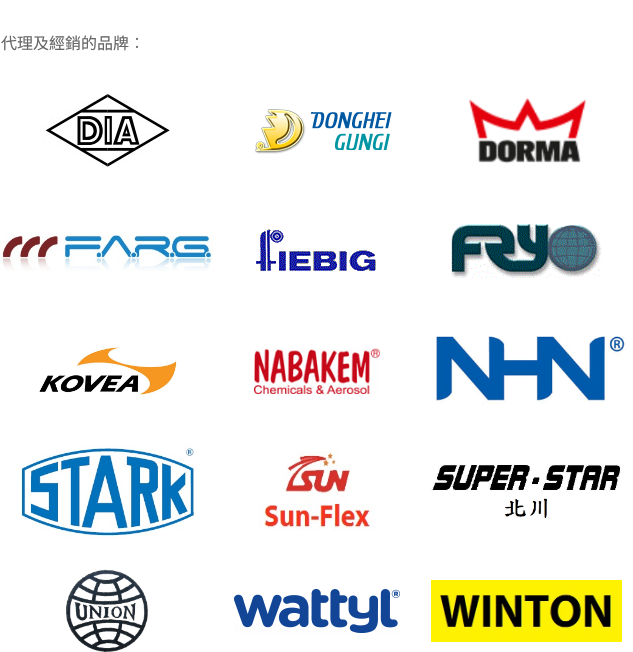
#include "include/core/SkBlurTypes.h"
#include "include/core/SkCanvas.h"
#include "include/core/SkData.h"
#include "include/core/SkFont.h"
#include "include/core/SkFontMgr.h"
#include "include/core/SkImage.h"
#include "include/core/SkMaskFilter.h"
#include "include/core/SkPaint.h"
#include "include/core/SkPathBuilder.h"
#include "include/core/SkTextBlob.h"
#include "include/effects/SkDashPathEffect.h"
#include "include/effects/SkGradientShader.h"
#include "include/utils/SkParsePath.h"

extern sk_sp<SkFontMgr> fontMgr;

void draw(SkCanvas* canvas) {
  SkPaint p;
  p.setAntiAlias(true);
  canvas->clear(SK_ColorWHITE);
  canvas->drawImageRect(SkImages::DeferredFromEncodedData(SkData::MakeFromFileName("images/1.png")), SkRect::MakeLTRB(42, 93, 170, 168), SkSamplingOptions());
  canvas->drawImageRect(SkImages::DeferredFromEncodedData(SkData::MakeFromFileName("images/2.png")), SkRect::MakeLTRB(254, 109, 392, 154), SkSamplingOptions());
  canvas->drawImageRect(SkImages::DeferredFromEncodedData(SkData::MakeFromFileName("images/3.png")), SkRect::MakeLTRB(469, 98, 586, 164), SkSamplingOptions());
  canvas->drawImageRect(SkImages::DeferredFromEncodedData(SkData::MakeFromFileName("images/4.png")), SkRect::MakeLTRB(1, 232, 213, 271), SkSamplingOptions());
  canvas->drawImageRect(SkImages::DeferredFromEncodedData(SkData::MakeFromFileName("images/5.png")), SkRect::MakeLTRB(256, 229, 376, 271), SkSamplingOptions());
  canvas->drawImageRect(SkImages::DeferredFromEncodedData(SkData::MakeFromFileName("images/6.png")), SkRect::MakeLTRB(451, 224, 602, 278), SkSamplingOptions());
  canvas->drawImageRect(SkImages::DeferredFromEncodedData(SkData::MakeFromFileName("images/7.png")), SkRect::MakeLTRB(39, 347, 177, 395), SkSamplingOptions());
  canvas->drawImageRect(SkImages::DeferredFromEncodedData(SkData::MakeFromFileName("images/8.png")), SkRect::MakeLTRB(254, 348, 380, 394), SkSamplingOptions());
  canvas->drawImageRect(SkImages::DeferredFromEncodedData(SkData::MakeFromFileName("images/9.png")), SkRect::MakeLTRB(435, 336, 628, 410), SkSamplingOptions());
  canvas->drawImageRect(SkImages::DeferredFromEncodedData(SkData::MakeFromFileName("images/10.png")), SkRect::MakeLTRB(15, 445, 197, 538), SkSamplingOptions());
  canvas->drawImageRect(SkImages::DeferredFromEncodedData(SkData::MakeFromFileName("images/11.png")), SkRect::MakeLTRB(259, 451, 374, 531), SkSamplingOptions());
  canvas->drawImageRect(SkImages::DeferredFromEncodedData(SkData::MakeFromFileName("images/12.png")), SkRect::MakeLTRB(431, 464, 621, 521), SkSamplingOptions());
  canvas->drawImageRect(SkImages::DeferredFromEncodedData(SkData::MakeFromFileName("images/13.png")), SkRect::MakeLTRB(66, 569, 148, 652), SkSamplingOptions());
  canvas->drawImageRect(SkImages::DeferredFromEncodedData(SkData::MakeFromFileName("images/14.png")), SkRect::MakeLTRB(234, 589, 400, 633), SkSamplingOptions());
  canvas->drawImageRect(SkImages::DeferredFromEncodedData(SkData::MakeFromFileName("images/15.png")), SkRect::MakeLTRB(431, 580, 622, 642), SkSamplingOptions());
  SkFont font1(fontMgr->matchFamilyStyle("Noto Sans CJK HK", SkFontStyle::Normal()), 16);
  font1.setSubpixel(true);
  p.setColor(SkColorSetRGB(102, 102, 102));
  canvas->drawString("代理及經銷的品牌︰", 1, 49, font1, p);
}
